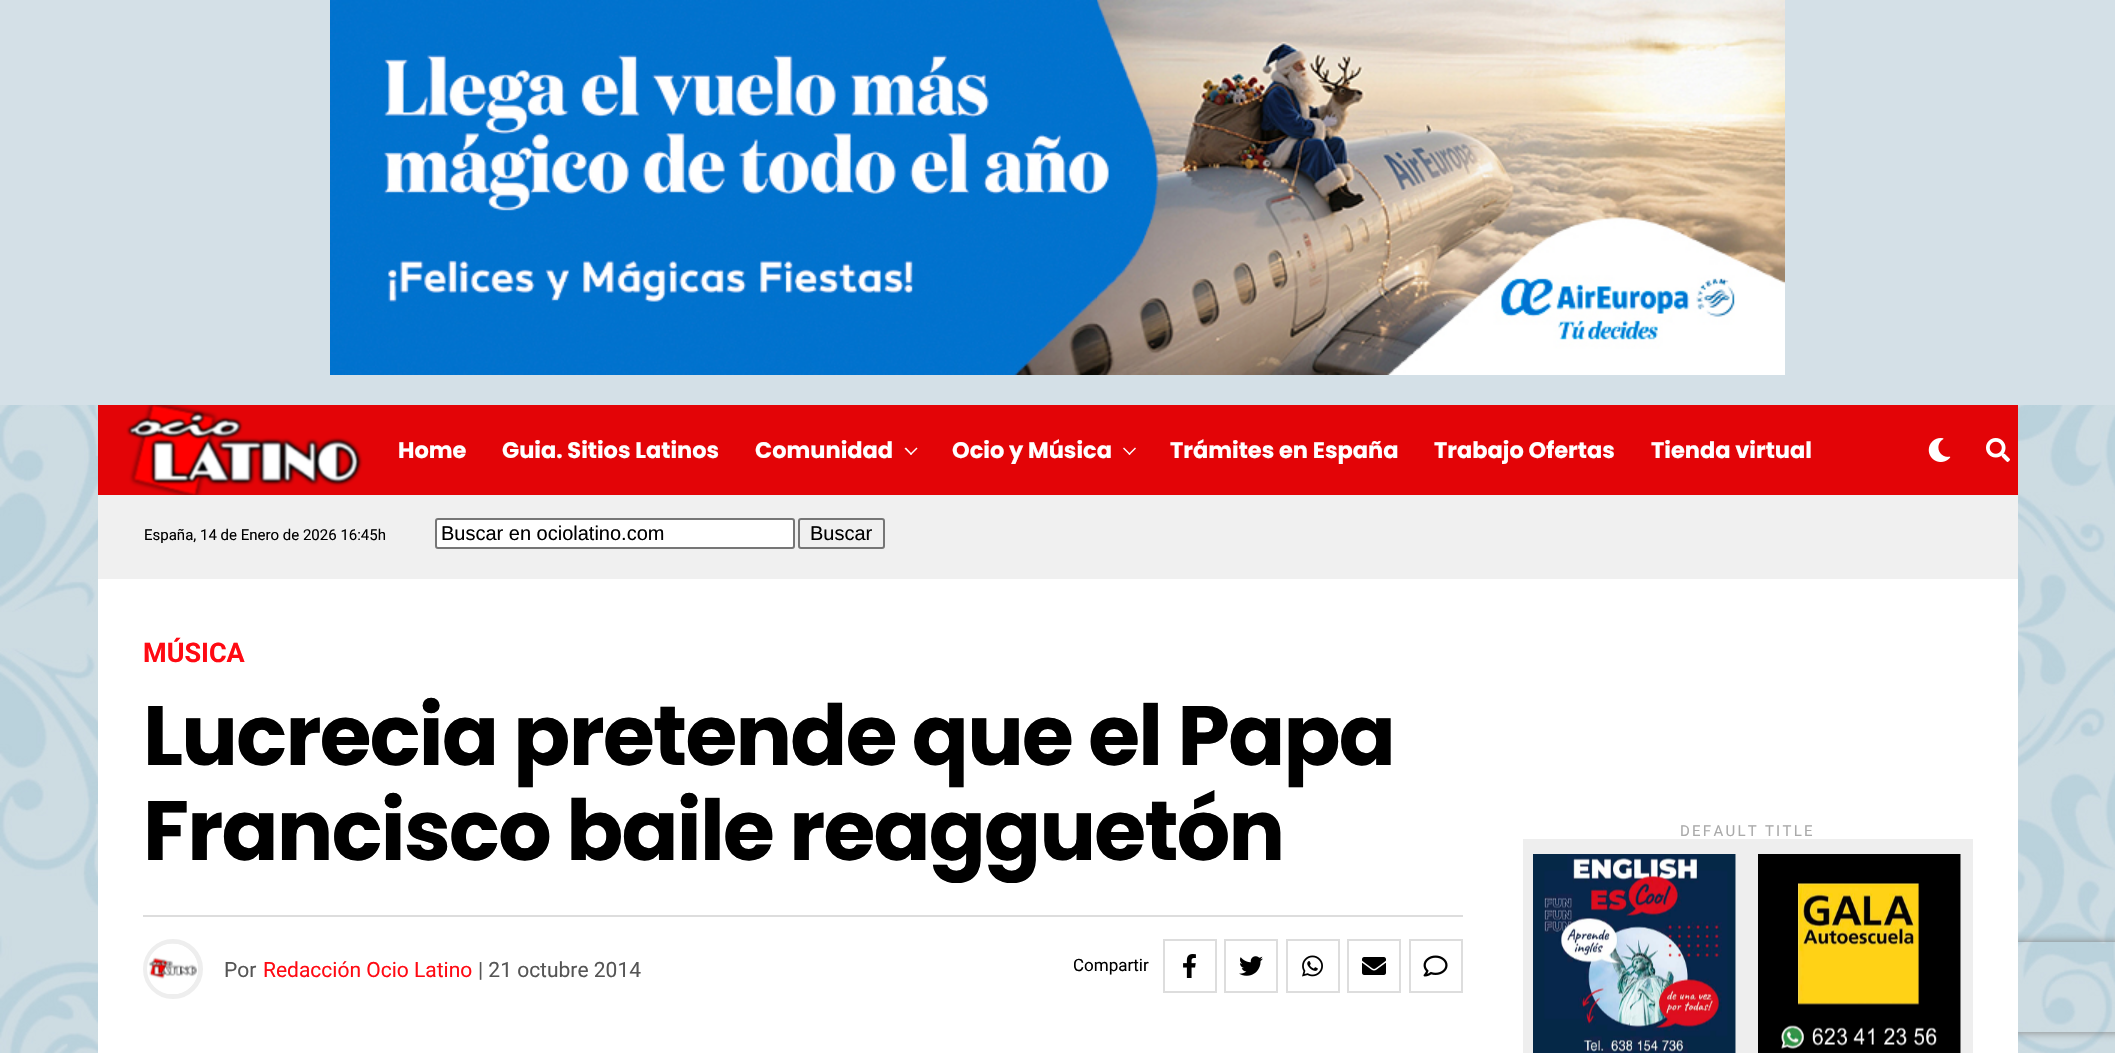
#include "include/core/SkBlurTypes.h"
#include "include/core/SkCanvas.h"
#include "include/core/SkData.h"
#include "include/core/SkFont.h"
#include "include/core/SkFontMgr.h"
#include "include/core/SkImage.h"
#include "include/core/SkMaskFilter.h"
#include "include/core/SkPaint.h"
#include "include/core/SkPathBuilder.h"
#include "include/core/SkTextBlob.h"
#include "include/effects/SkDashPathEffect.h"
#include "include/effects/SkGradientShader.h"
#include "include/utils/SkParsePath.h"

extern sk_sp<SkFontMgr> fontMgr;

void draw(SkCanvas* canvas) {
  SkPaint p;
  p.setAntiAlias(true);
  auto spacedText = [&](const char* s, float x, float y, const SkFont& font, const SkPaint& ink, float letter, float word) {
    std::vector<SkGlyphID> glyphs(font.countText(s, strlen(s), SkTextEncoding::kUTF8));
    std::vector<float> xs(glyphs.size());
    font.textToGlyphs(s, strlen(s), SkTextEncoding::kUTF8, glyphs);
    font.getXPos(glyphs, xs, x);
    float extra = 0;
    for (size_t i = 0; i < glyphs.size(); i++) {
      xs[i] += extra;
      extra += letter + word * (glyphs[i] == font.unicharToGlyph(' '));
    }
    canvas->drawTextBlob(SkTextBlob::MakeFromPosHGlyphs(glyphs, xs, y, font), 0, 0, ink);
  };
  canvas->clear(SK_ColorWHITE);
  canvas->drawImageRect(SkImages::DeferredFromEncodedData(SkData::MakeFromFileName("images/1.png")), SkRect::MakeLTRB(0, 405, 2115, 1053), SkSamplingOptions());
  p.setColor(SkColorSetRGB(212, 224, 231));
  canvas->drawRect(SkRect::MakeLTRB(0, 0, 2115, 405), p);
  canvas->drawImageRect(SkImages::DeferredFromEncodedData(SkData::MakeFromFileName("images/2.png")), SkRect::MakeLTRB(330, 0, 1785, 375), SkSamplingOptions());
  p.setColor(SkColorSetRGB(227, 4, 7));
  canvas->drawRect(SkRect::MakeLTRB(98, 405, 2018, 495), p);
  canvas->drawImageRect(SkImages::DeferredFromEncodedData(SkData::MakeFromFileName("images/3.png")), SkRect::MakeLTRB(126, 405, 363, 495), SkSamplingOptions());
  p.setColor(SK_ColorWHITE);
  canvas->drawPath(SkPathBuilder().moveTo(916.5f, 447.5f).lineTo(917.5f, 448.5f).lineTo(911, 455).lineTo(910, 454).close().detach(), p);
  canvas->drawPath(SkPathBuilder().moveTo(906, 447.5f).lineTo(912, 454).lineTo(911, 455).lineTo(904.5f, 448.5f).close().detach(), p);
  canvas->drawPath(SkPathBuilder().moveTo(1135, 447.5f).lineTo(1136, 448.5f).lineTo(1129.5f, 455).lineTo(1128.5f, 454).close().detach(), p);
  canvas->drawPath(SkPathBuilder().moveTo(1124, 447.5f).lineTo(1130.5f, 454).lineTo(1129.5f, 455).lineTo(1123, 448.5f).close().detach(), p);
  canvas->drawImageRect(SkImages::DeferredFromEncodedData(SkData::MakeFromFileName("images/4.png")), SkRect::MakeLTRB(1928, 438, 1951, 462), SkSamplingOptions());
  canvas->drawImageRect(SkImages::DeferredFromEncodedData(SkData::MakeFromFileName("images/5.png")), SkRect::MakeLTRB(1986, 438, 2010, 462), SkSamplingOptions());
  p.setColor(SkColorSetRGB(240, 240, 240));
  canvas->drawRect(SkRect::MakeLTRB(98, 495, 2018, 579), p);
  p.setColor(SK_ColorWHITE);
  canvas->drawRoundRect(SkRect::MakeLTRB(436, 519, 794, 548), 2, 2, p);
  p.setStyle(SkPaint::kStroke_Style);
  p.setStrokeWidth(2);
  p.setColor(SkColorSetRGB(118, 118, 118));
  canvas->drawRoundRect(SkRect::MakeLTRB(436, 519, 794, 548), 2, 2, p);
  canvas->drawRoundRect(SkRect::MakeLTRB(799, 519, 884, 548), 2, 2, p);
  canvas->save();
  canvas->clipPath(SkPathBuilder(SkPathFillType::kEvenOdd).moveTo(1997, 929).lineTo(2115, 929).lineTo(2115, 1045).lineTo(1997, 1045).close().moveTo(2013, 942).lineTo(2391, 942).cubicTo(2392.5f, 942, 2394, 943.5f, 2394, 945).lineTo(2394, 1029).cubicTo(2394, 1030.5f, 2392.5f, 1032, 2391, 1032).lineTo(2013, 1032).cubicTo(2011.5f, 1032, 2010, 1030.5f, 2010, 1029).lineTo(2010, 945).cubicTo(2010, 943.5f, 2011.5f, 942, 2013, 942).close().detach(), true);
  p.setStyle(SkPaint::kFill_Style);
  p.setColor(SkColorSetRGB(128, 128, 128));
  p.setMaskFilter(SkMaskFilter::MakeBlur(kNormal_SkBlurStyle, 4));
  canvas->drawRoundRect(SkRect::MakeLTRB(2010, 942, 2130, 1032), 3, 3, p);
  p.setMaskFilter(nullptr);
  canvas->restore();
  p.setColor(SK_ColorWHITE);
  canvas->drawRect(SkRect::MakeLTRB(98, 579, 2018, 1053), p);
  p.setColor(SkColorSetRGB(221, 221, 221));
  canvas->drawRect(SkRect::MakeLTRB(143, 915, 1463, 917), p);
  p.setStyle(SkPaint::kStroke_Style);
  p.setStrokeWidth(5);
  p.setColor(SkColorSetRGB(238, 238, 238));
  canvas->drawCircle(173, 969, 27.5f, p);
  canvas->drawImageRect(SkImages::DeferredFromEncodedData(SkData::MakeFromFileName("images/6.png")), SkRect::MakeLTRB(147, 943, 198, 994), SkSamplingOptions());
  p.setStrokeWidth(2);
  p.setColor(SkColorSetRGB(221, 221, 221));
  canvas->drawRect(SkRect::MakeLTRB(1164, 940, 1216, 992), p);
  canvas->drawImageRect(SkImages::DeferredFromEncodedData(SkData::MakeFromFileName("images/7.png")), SkRect::MakeLTRB(1183, 954, 1196, 978), SkSamplingOptions());
  canvas->drawRect(SkRect::MakeLTRB(1225, 940, 1277, 992), p);
  canvas->drawImageRect(SkImages::DeferredFromEncodedData(SkData::MakeFromFileName("images/8.png")), SkRect::MakeLTRB(1239, 956, 1263, 976), SkSamplingOptions());
  canvas->drawRect(SkRect::MakeLTRB(1287, 940, 1339, 992), p);
  canvas->drawImageRect(SkImages::DeferredFromEncodedData(SkData::MakeFromFileName("images/9.png")), SkRect::MakeLTRB(1302, 955, 1323, 977), SkSamplingOptions());
  canvas->drawRect(SkRect::MakeLTRB(1348, 940, 1400, 992), p);
  canvas->drawImageRect(SkImages::DeferredFromEncodedData(SkData::MakeFromFileName("images/10.png")), SkRect::MakeLTRB(1362, 957, 1386, 975), SkSamplingOptions());
  canvas->drawRect(SkRect::MakeLTRB(1410, 940, 1462, 992), p);
  canvas->drawImageRect(SkImages::DeferredFromEncodedData(SkData::MakeFromFileName("images/11.png")), SkRect::MakeLTRB(1423, 955, 1448, 977), SkSamplingOptions());
  p.setStyle(SkPaint::kFill_Style);
  p.setColor(SkColorSetRGB(238, 238, 238));
  canvas->drawRect(SkRect::MakeLTRB(1523, 839, 1973, 1053), p);
  p.setColor(SkColorSetRGB(245, 245, 245));
  canvas->drawRect(SkRect::MakeLTRB(1735, 854, 1736, 1053), p);
  canvas->drawImageRect(SkImages::DeferredFromEncodedData(SkData::MakeFromFileName("images/12.png")), SkRect::MakeLTRB(1533, 854, 1736, 1053), SkSamplingOptions());
  canvas->drawRect(SkRect::MakeLTRB(1960, 854, 1961, 1053), p);
  canvas->drawImageRect(SkImages::DeferredFromEncodedData(SkData::MakeFromFileName("images/13.png")), SkRect::MakeLTRB(1758, 854, 1961, 1053), SkSamplingOptions());
  SkFont font1(fontMgr->matchFamilyStyle("Poppins", SkFontStyle::Bold()), 22.5f);
  font1.setSubpixel(true);
  p.setColor(SK_ColorWHITE);
  canvas->drawString("Home", 398, 458, font1, p);
  canvas->drawString("Guia. Sitios Latinos", 502, 458, font1, p);
  canvas->drawString("Comunidad", 755, 458, font1, p);
  canvas->drawString("Ocio y Música", 952, 458, font1, p);
  canvas->drawString("Trámites en España", 1170, 458, font1, p);
  canvas->drawString("Trabajo Ofertas", 1434, 458, font1, p);
  canvas->drawString("Tienda virtual", 1651, 458, font1, p);
  SkFont font2(fontMgr->matchFamilyStyle("Roboto", SkFontStyle::Normal()), 15);
  font2.setSubpixel(true);
  p.setColor(SK_ColorBLACK);
  canvas->drawString("España, 14 de Enero de 2026 16:45h", 144, 540, font2, p);
  SkFont font3(fontMgr->matchFamilyStyle("Liberation Sans", SkFontStyle::Normal()), 20);
  font3.setSubpixel(true);
  canvas->drawString("Buscar en ociolatino.com", 441, 540, font3, p);
  canvas->drawString("Buscar", 810, 540, font3, p);
  SkFont font4(fontMgr->matchFamilyStyle("Roboto", SkFontStyle::Bold()), 27);
  font4.setSubpixel(true);
  p.setColor(SkColorSetRGB(255, 10, 19));
  canvas->drawString("MÚSICA", 143, 662, font4, p);
  SkFont font5(fontMgr->matchFamilyStyle("Poppins", SkFontStyle::Bold()), 84);
  font5.setSubpixel(true);
  p.setColor(SK_ColorBLACK);
  spacedText("Lucrecia pretende que el Papa", 143, 765, font5, p, -1.7f, 0);
  spacedText("Francisco baile reagguetón", 143, 860, font5, p, -1.7f, 0);
  SkFont font6(fontMgr->matchFamilyStyle("Roboto", SkFontStyle::Normal()), 21);
  font6.setSubpixel(true);
  p.setColor(SkColorSetRGB(85, 85, 85));
  canvas->drawString("Por", 224, 977, font6, p);
  p.setColor(SkColorSetRGB(255, 10, 19));
  canvas->drawString("Redacción Ocio Latino", 263, 977, font6, p);
  p.setColor(SkColorSetRGB(85, 85, 85));
  canvas->drawString("| 21 octubre 2014", 478, 977, font6, p);
  SkFont font7(fontMgr->matchFamilyStyle("Roboto", SkFontStyle::Normal()), 17);
  font7.setSubpixel(true);
  p.setColor(SK_ColorBLACK);
  canvas->drawString("Compartir", 1073, 971, font7, p);
  p.setColor(SkColorSetRGB(170, 170, 170));
  spacedText("DEFAULT TITLE", 1680, 836, font2, p, 2.25f, 0);
}
